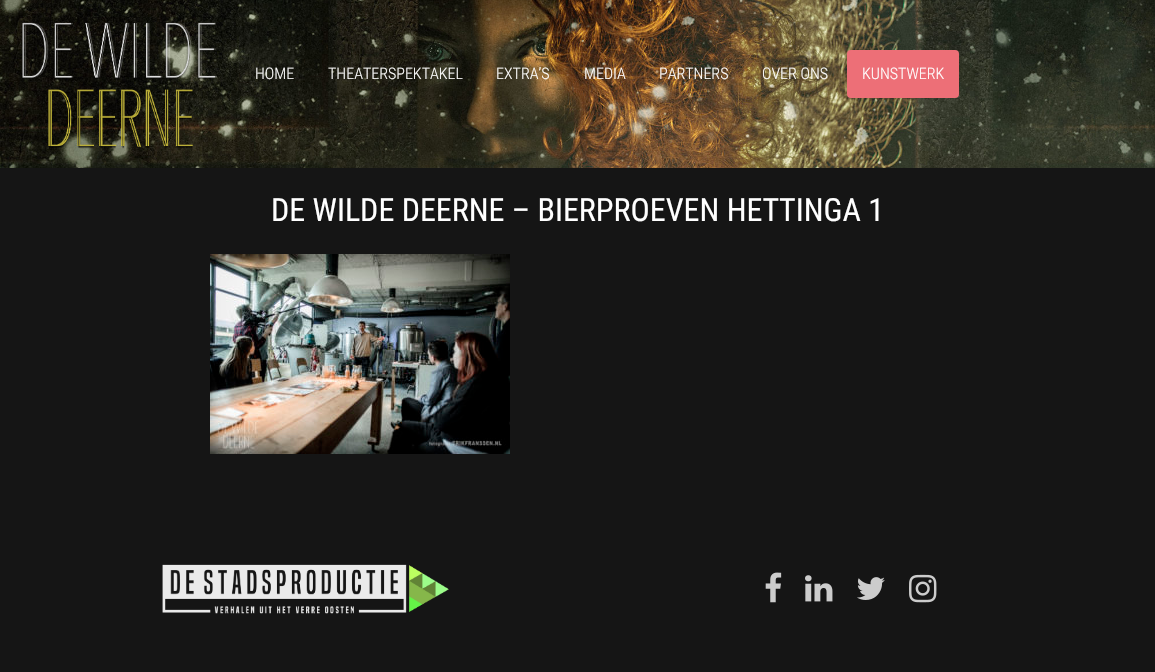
#include "include/core/SkBlurTypes.h"
#include "include/core/SkCanvas.h"
#include "include/core/SkData.h"
#include "include/core/SkFont.h"
#include "include/core/SkFontMgr.h"
#include "include/core/SkImage.h"
#include "include/core/SkMaskFilter.h"
#include "include/core/SkPaint.h"
#include "include/core/SkPathBuilder.h"
#include "include/core/SkTextBlob.h"
#include "include/effects/SkDashPathEffect.h"
#include "include/effects/SkGradientShader.h"
#include "include/utils/SkParsePath.h"

extern sk_sp<SkFontMgr> fontMgr;

void draw(SkCanvas* canvas) {
  SkPaint p;
  p.setAntiAlias(true);
  canvas->clear(SkColorSetRGB(21, 21, 21));
  canvas->drawImageRect(SkImages::DeferredFromEncodedData(SkData::MakeFromFileName("images/1.png")), SkRect::MakeLTRB(0, 0, 1155, 168), SkSamplingOptions());
  canvas->drawImageRect(SkImages::DeferredFromEncodedData(SkData::MakeFromFileName("images/2.png")), SkRect::MakeLTRB(21, 22, 217, 149), SkSamplingOptions());
  p.setColor(SkColorSetRGB(237, 111, 119));
  canvas->drawRoundRect(SkRect::MakeLTRB(847, 50, 959, 98), 4, 4, p);
  canvas->drawImageRect(SkImages::DeferredFromEncodedData(SkData::MakeFromFileName("images/3.png")), SkRect::MakeLTRB(210, 254, 510, 454), SkSamplingOptions());
  canvas->drawImageRect(SkImages::DeferredFromEncodedData(SkData::MakeFromFileName("images/4.png")), SkRect::MakeLTRB(162, 564, 449, 614), SkSamplingOptions());
  canvas->drawImageRect(SkImages::DeferredFromEncodedData(SkData::MakeFromFileName("images/5.png")), SkRect::MakeLTRB(765, 572, 782, 603), SkSamplingOptions());
  canvas->drawImageRect(SkImages::DeferredFromEncodedData(SkData::MakeFromFileName("images/6.png")), SkRect::MakeLTRB(805, 575, 833, 602), SkSamplingOptions());
  canvas->drawImageRect(SkImages::DeferredFromEncodedData(SkData::MakeFromFileName("images/7.png")), SkRect::MakeLTRB(857, 577, 885, 600), SkSamplingOptions());
  canvas->drawImageRect(SkImages::DeferredFromEncodedData(SkData::MakeFromFileName("images/8.png")), SkRect::MakeLTRB(909, 574, 937, 603), SkSamplingOptions());
  SkFont font1(fontMgr->matchFamilyStyle("Roboto Condensed", SkFontStyle(300, SkFontStyle::kNormal_Width, SkFontStyle::kUpright_Slant)), 16);
  font1.setSubpixel(true);
  p.setColor(SK_ColorWHITE);
  canvas->drawString("HOME", 255, 79, font1, p);
  canvas->drawString("THEATERSPEKTAKEL", 328, 79, font1, p);
  canvas->drawString("EXTRA’S", 496, 79, font1, p);
  canvas->drawString("MEDIA", 584, 79, font1, p);
  canvas->drawString("PARTNERS", 659, 79, font1, p);
  canvas->drawString("OVER ONS", 762, 79, font1, p);
  canvas->drawString("KUNSTWERK", 862, 79, font1, p);
  SkFont font2(fontMgr->matchFamilyStyle("Roboto Condensed", SkFontStyle::Normal()), 32);
  font2.setSubpixel(true);
  canvas->drawString("DE WILDE DEERNE – BIERPROEVEN HETTINGA 1", 271, 221, font2, p);
}
